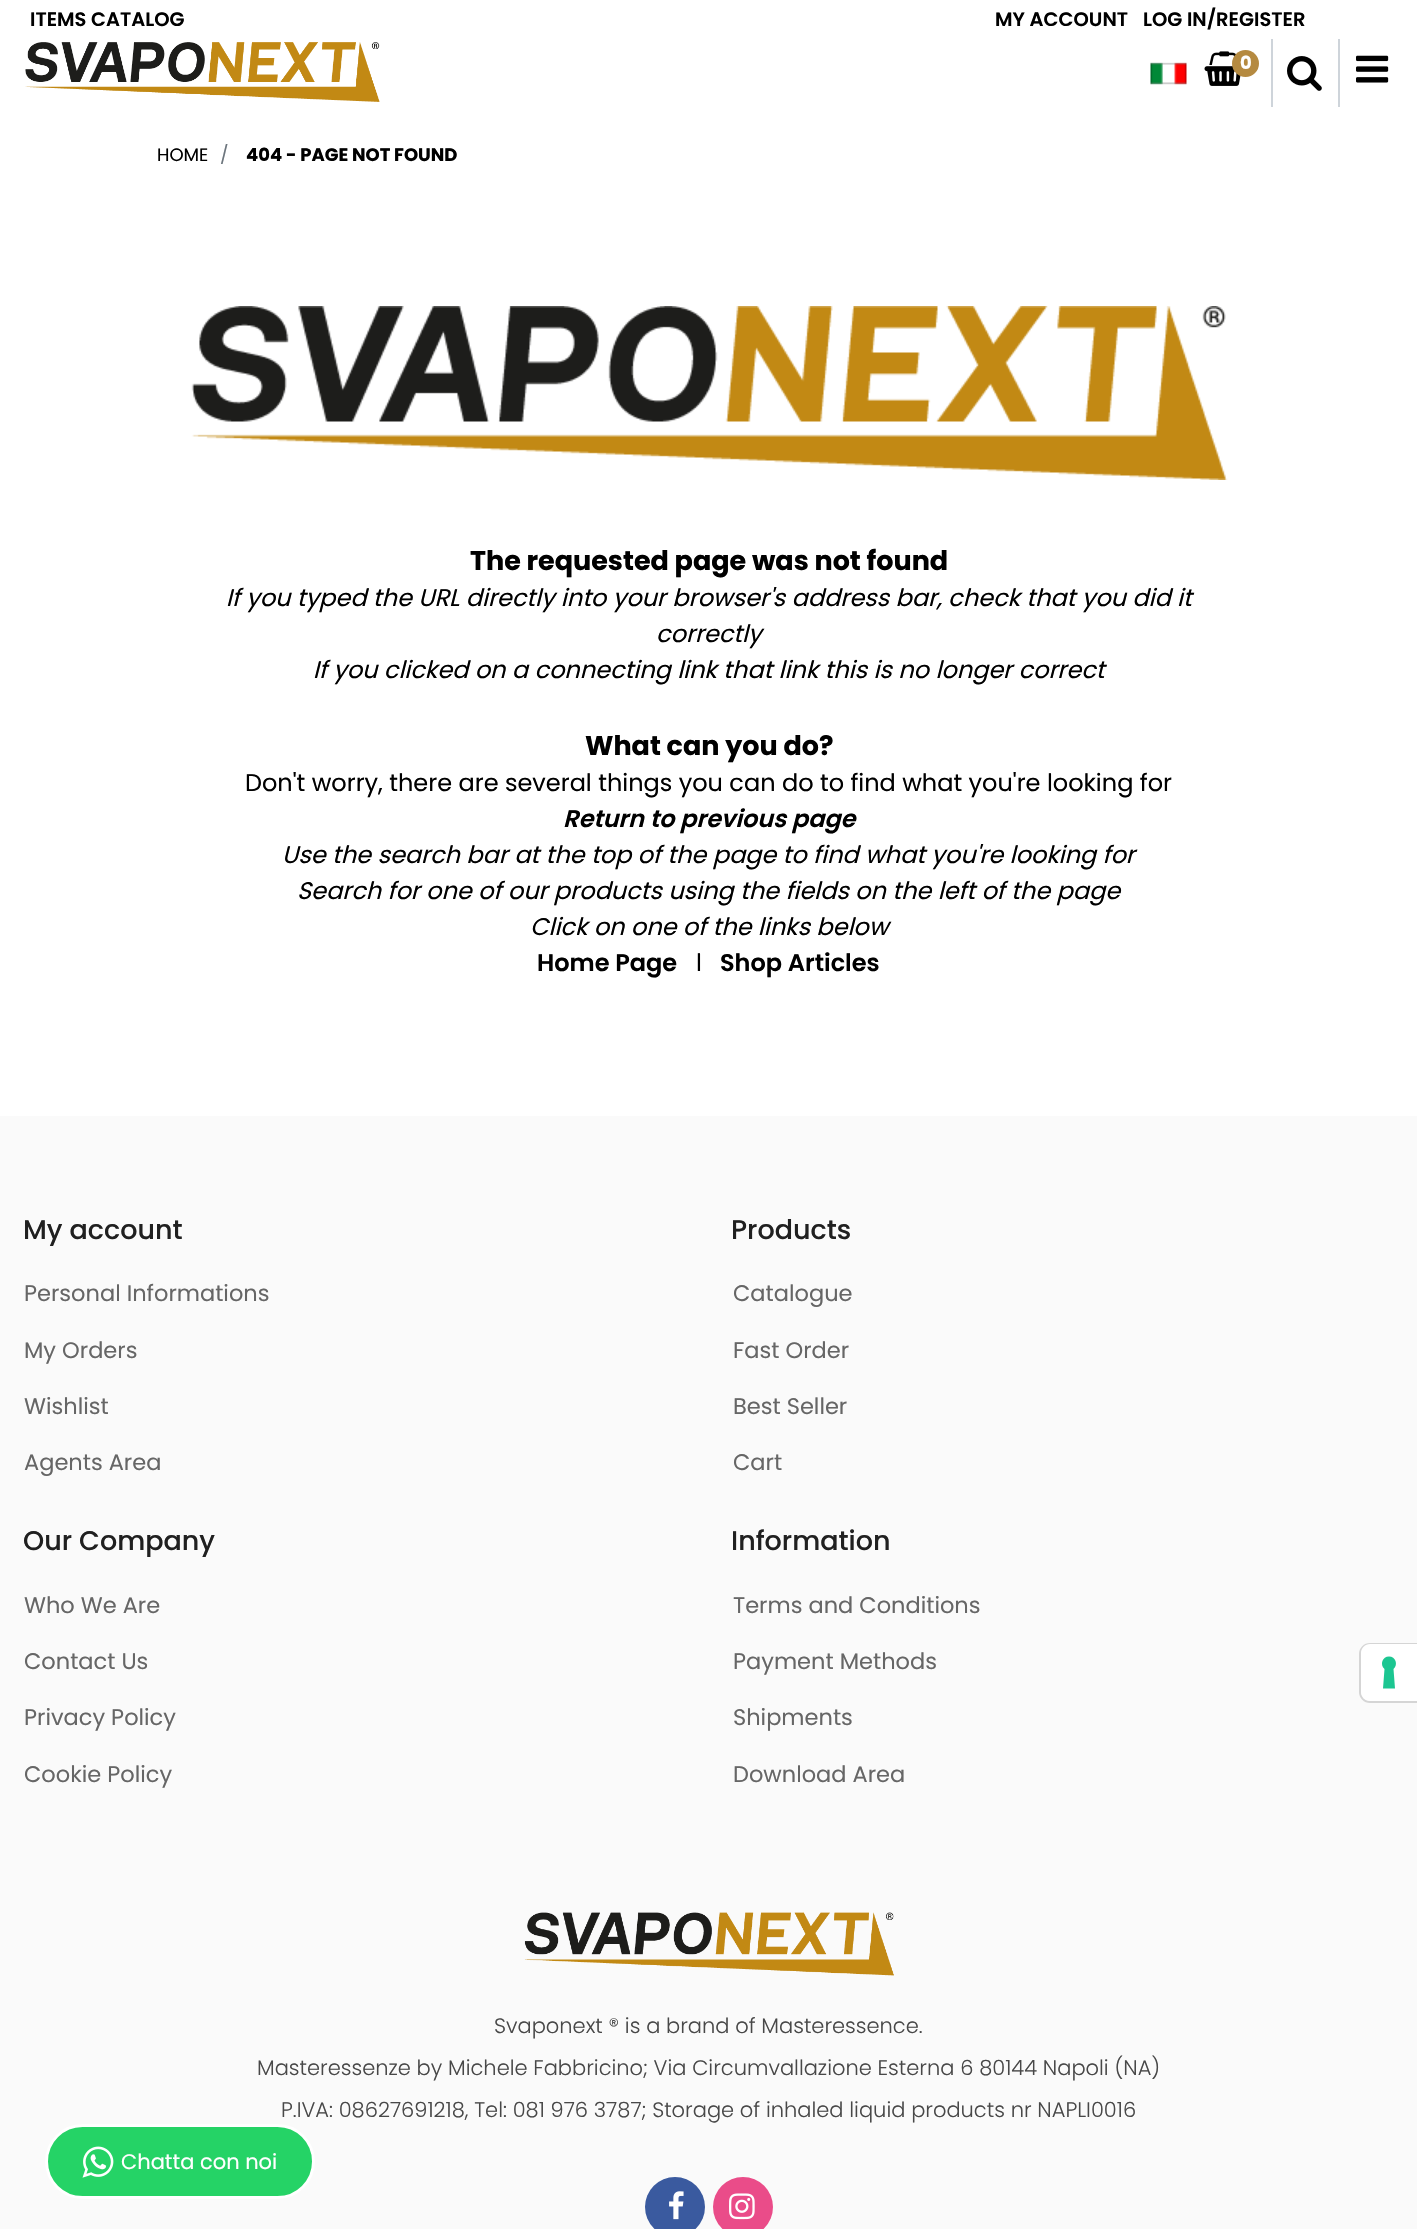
#include "include/core/SkBlurTypes.h"
#include "include/core/SkCanvas.h"
#include "include/core/SkData.h"
#include "include/core/SkFont.h"
#include "include/core/SkFontMgr.h"
#include "include/core/SkImage.h"
#include "include/core/SkMaskFilter.h"
#include "include/core/SkPaint.h"
#include "include/core/SkPathBuilder.h"
#include "include/core/SkTextBlob.h"
#include "include/effects/SkDashPathEffect.h"
#include "include/effects/SkGradientShader.h"
#include "include/utils/SkParsePath.h"

extern sk_sp<SkFontMgr> fontMgr;

void draw(SkCanvas* canvas) {
  SkPaint p;
  p.setAntiAlias(true);
  canvas->clear(SK_ColorWHITE);
  canvas->drawImageRect(SkImages::DeferredFromEncodedData(SkData::MakeFromFileName("images/1.png")), SkRect::MakeLTRB(25, 42, 380, 102), SkSamplingOptions());
  canvas->drawImageRect(SkImages::DeferredFromEncodedData(SkData::MakeFromFileName("images/2.png")), SkRect::MakeLTRB(1150, 62, 1187, 85), SkSamplingOptions());
  canvas->drawImageRect(SkImages::DeferredFromEncodedData(SkData::MakeFromFileName("images/3.png")), SkRect::MakeLTRB(1204, 51, 1241, 86), SkSamplingOptions());
  p.setColor(SkColorSetRGB(181, 138, 64));
  canvas->drawCircle(1245.5f, 63.5f, 13.5f, p);
  p.setColor(SkColorSetRGB(206, 212, 218));
  canvas->drawRect(SkRect::MakeLTRB(1338, 39, 1340, 107), p);
  canvas->drawRect(SkRect::MakeLTRB(1271, 39, 1273, 107), p);
  canvas->drawImageRect(SkImages::DeferredFromEncodedData(SkData::MakeFromFileName("images/4.png")), SkRect::MakeLTRB(1287, 56, 1322, 91), SkSamplingOptions());
  canvas->drawImageRect(SkImages::DeferredFromEncodedData(SkData::MakeFromFileName("images/5.png")), SkRect::MakeLTRB(1356, 55, 1389, 83), SkSamplingOptions());
  canvas->drawImageRect(SkImages::DeferredFromEncodedData(SkData::MakeFromFileName("images/6.png")), SkRect::MakeLTRB(191, 306, 1228, 480), SkSamplingOptions());
  p.setColor(SkColorSetRGB(250, 250, 250));
  canvas->drawRect(SkRect::MakeLTRB(0, 1116, 1417, 2229), p);
  canvas->drawImageRect(SkImages::DeferredFromEncodedData(SkData::MakeFromFileName("images/7.png")), SkRect::MakeLTRB(524, 1912, 894, 1976), SkSamplingOptions());
  p.setColor(SkColorSetRGB(58, 90, 159));
  canvas->drawCircle(675, 2207, 30, p);
  canvas->drawImageRect(SkImages::DeferredFromEncodedData(SkData::MakeFromFileName("images/8.png")), SkRect::MakeLTRB(669, 2191, 684, 2220), SkSamplingOptions());
  p.setColor(SkColorSetRGB(234, 76, 137));
  canvas->drawCircle(743, 2207, 30, p);
  canvas->drawImageRect(SkImages::DeferredFromEncodedData(SkData::MakeFromFileName("images/9.png")), SkRect::MakeLTRB(729, 2193, 755, 2220), SkSamplingOptions());
  p.setColor(SkColorSetRGB(37, 211, 102));
  canvas->drawRoundRect(SkRect::MakeLTRB(46.5f, 2125.5f, 313.5f, 2197.5f), 36, 36, p);
  p.setStyle(SkPaint::kStroke_Style);
  p.setStrokeWidth(3);
  p.setColor(SK_ColorWHITE);
  canvas->drawRoundRect(SkRect::MakeLTRB(46.5f, 2125.5f, 313.5f, 2197.5f), 36, 36, p);
  canvas->drawImageRect(SkImages::DeferredFromEncodedData(SkData::MakeFromFileName("images/10.png")), SkRect::MakeLTRB(82, 2146, 114, 2178), SkSamplingOptions());
  p.setStrokeWidth(2);
  p.setColor(SkColorSetRGB(213, 213, 213));
  canvas->drawPath(SkPathBuilder().moveTo(1370, 1644).lineTo(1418, 1644).lineTo(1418, 1702).lineTo(1370, 1702).cubicTo(1364.5f, 1702, 1360, 1697.5f, 1360, 1692).lineTo(1360, 1654).cubicTo(1360, 1648.5f, 1364.5f, 1644, 1370, 1644).close().detach(), p);
  p.setStyle(SkPaint::kFill_Style);
  p.setColor(SK_ColorWHITE);
  canvas->drawPath(SkPathBuilder().moveTo(1370, 1644).lineTo(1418, 1644).lineTo(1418, 1701).lineTo(1370, 1701).cubicTo(1365, 1701, 1361, 1697, 1361, 1692).lineTo(1361, 1653).cubicTo(1361, 1648, 1365, 1644, 1370, 1644).close().detach(), p);
  p.setColor(SkColorSetRGB(28, 198, 145));
  canvas->drawPath(SkPathBuilder(SkPathFillType::kEvenOdd).moveTo(1389, 1656.5f).cubicTo(1395.5f, 1656.5f, 1398.5f, 1664.5f, 1393.5f, 1669).lineTo(1395, 1688.5f).lineTo(1383, 1688.5f).lineTo(1384.5f, 1669).cubicTo(1379.5f, 1664.5f, 1382.5f, 1656.5f, 1389, 1656.5f).close().detach(), p);
  SkFont font1(fontMgr->matchFamilyStyle("Poppins", SkFontStyle(600, SkFontStyle::kNormal_Width, SkFontStyle::kUpright_Slant)), 19.5f);
  font1.setSubpixel(true);
  p.setColor(SK_ColorBLACK);
  canvas->drawString("ITEMS CATALOG", 30, 26, font1, p);
  canvas->drawString("MY ACCOUNT", 995, 26, font1, p);
  canvas->drawString("LOG IN/REGISTER", 1143, 26, font1, p);
  SkFont font2(fontMgr->matchFamilyStyle("Poppins", SkFontStyle::Bold()), 18);
  font2.setSubpixel(true);
  p.setColor(SK_ColorWHITE);
  canvas->drawString("0", 1240, 69, font2, p);
  SkFont font3(fontMgr->matchFamilyStyle("Poppins", SkFontStyle::Normal()), 18);
  font3.setSubpixel(true);
  p.setColor(SK_ColorBLACK);
  canvas->drawString("HOME", 157, 161, font3, p);
  p.setColor(SkColorSetRGB(108, 117, 125));
  canvas->drawString("/", 220, 161, font3, p);
  p.setColor(SK_ColorBLACK);
  canvas->drawString("404 - PAGE NOT FOUND", 246, 161, font2, p);
  SkFont font4(fontMgr->matchFamilyStyle("Poppins", SkFontStyle::Bold()), 27);
  font4.setSubpixel(true);
  canvas->drawString("The requested page was not found", 470, 570, font4, p);
  SkFont font5(fontMgr->matchFamilyStyle("Poppins", SkFontStyle::Italic()), 24);
  font5.setSubpixel(true);
  canvas->drawString("If you typed the URL directly into your browser's address bar, check that you did it", 226, 606, font5, p);
  canvas->drawString("correctly", 656, 642, font5, p);
  canvas->drawString("If you clicked on a connecting link that link this is no longer correct", 313, 678, font5, p);
  canvas->drawString("What can you do?", 585, 755, font4, p);
  SkFont font6(fontMgr->matchFamilyStyle("Poppins", SkFontStyle::Normal()), 24);
  font6.setSubpixel(true);
  canvas->drawString("Don't worry, there are several things you can do to find what you're looking for", 245, 791, font6, p);
  SkFont font7(fontMgr->matchFamilyStyle("Poppins", SkFontStyle(600, SkFontStyle::kNormal_Width, SkFontStyle::kItalic_Slant)), 24);
  font7.setSubpixel(true);
  canvas->drawString("Return to previous page", 563, 827, font7, p);
  canvas->drawString("Use the search bar at the top of the page to find what you're looking for", 282, 863, font5, p);
  canvas->drawString("Search for one of our products using the fields on the left of the page", 297, 899, font5, p);
  canvas->drawString("Click on one of the links below", 530, 935, font5, p);
  SkFont font8(fontMgr->matchFamilyStyle("Poppins", SkFontStyle(600, SkFontStyle::kNormal_Width, SkFontStyle::kUpright_Slant)), 24);
  font8.setSubpixel(true);
  canvas->drawString("Home Page", 537, 971, font8, p);
  canvas->drawString("l", 696, 971, font6, p);
  canvas->drawString("Shop Articles", 720, 971, font8, p);
  SkFont font9(fontMgr->matchFamilyStyle("Poppins", SkFontStyle(500, SkFontStyle::kNormal_Width, SkFontStyle::kUpright_Slant)), 27);
  font9.setSubpixel(true);
  p.setColor(SkColorSetRGB(32, 32, 32));
  canvas->drawString("My account", 23, 1239, font9, p);
  SkFont font10(fontMgr->matchFamilyStyle("Poppins", SkFontStyle::Normal()), 22.5f);
  font10.setSubpixel(true);
  p.setColor(SkColorSetRGB(102, 102, 102));
  canvas->drawString("Personal Informations", 24, 1301, font10, p);
  canvas->drawString("My Orders", 24, 1358, font10, p);
  canvas->drawString("Wishlist", 24, 1414, font10, p);
  canvas->drawString("Agents Area", 24, 1470, font10, p);
  p.setColor(SkColorSetRGB(32, 32, 32));
  canvas->drawString("Products", 731, 1239, font9, p);
  p.setColor(SkColorSetRGB(102, 102, 102));
  canvas->drawString("Catalogue", 733, 1301, font10, p);
  canvas->drawString("Fast Order", 733, 1358, font10, p);
  canvas->drawString("Best Seller", 733, 1414, font10, p);
  canvas->drawString("Cart", 733, 1470, font10, p);
  p.setColor(SkColorSetRGB(32, 32, 32));
  canvas->drawString("Our Company", 23, 1550, font9, p);
  p.setColor(SkColorSetRGB(102, 102, 102));
  canvas->drawString("Who We Are", 24, 1613, font10, p);
  canvas->drawString("Contact Us", 24, 1669, font10, p);
  canvas->drawString("Privacy Policy", 24, 1725, font10, p);
  canvas->drawString("Cookie Policy", 24, 1782, font10, p);
  p.setColor(SkColorSetRGB(32, 32, 32));
  canvas->drawString("Information", 731, 1550, font9, p);
  p.setColor(SkColorSetRGB(102, 102, 102));
  canvas->drawString("Terms and Conditions", 733, 1613, font10, p);
  canvas->drawString("Payment Methods", 733, 1669, font10, p);
  canvas->drawString("Shipments", 733, 1725, font10, p);
  canvas->drawString("Download Area", 733, 1782, font10, p);
  SkFont font11(fontMgr->matchFamilyStyle("Poppins", SkFontStyle(300, SkFontStyle::kNormal_Width, SkFontStyle::kUpright_Slant)), 21);
  font11.setSubpixel(true);
  p.setColor(SkColorSetRGB(72, 72, 72));
  canvas->drawString("Svaponext ® is a brand of Masteressence.", 494, 2033, font11, p);
  canvas->drawString("Masteressenze by Michele Fabbricino; Via Circumvallazione Esterna 6 80144 Napoli (NA)", 257, 2075, font11, p);
  canvas->drawString("P.IVA: 08627691218, Tel: 081 976 3787; Storage of inhaled liquid products nr NAPLI0016", 281, 2117, font11, p);
  SkFont font12(fontMgr->matchFamilyStyle("Poppins", SkFontStyle::Normal()), 21);
  font12.setSubpixel(true);
  p.setColor(SK_ColorWHITE);
  canvas->drawString("Chatta con noi", 121, 2169, font12, p);
}
